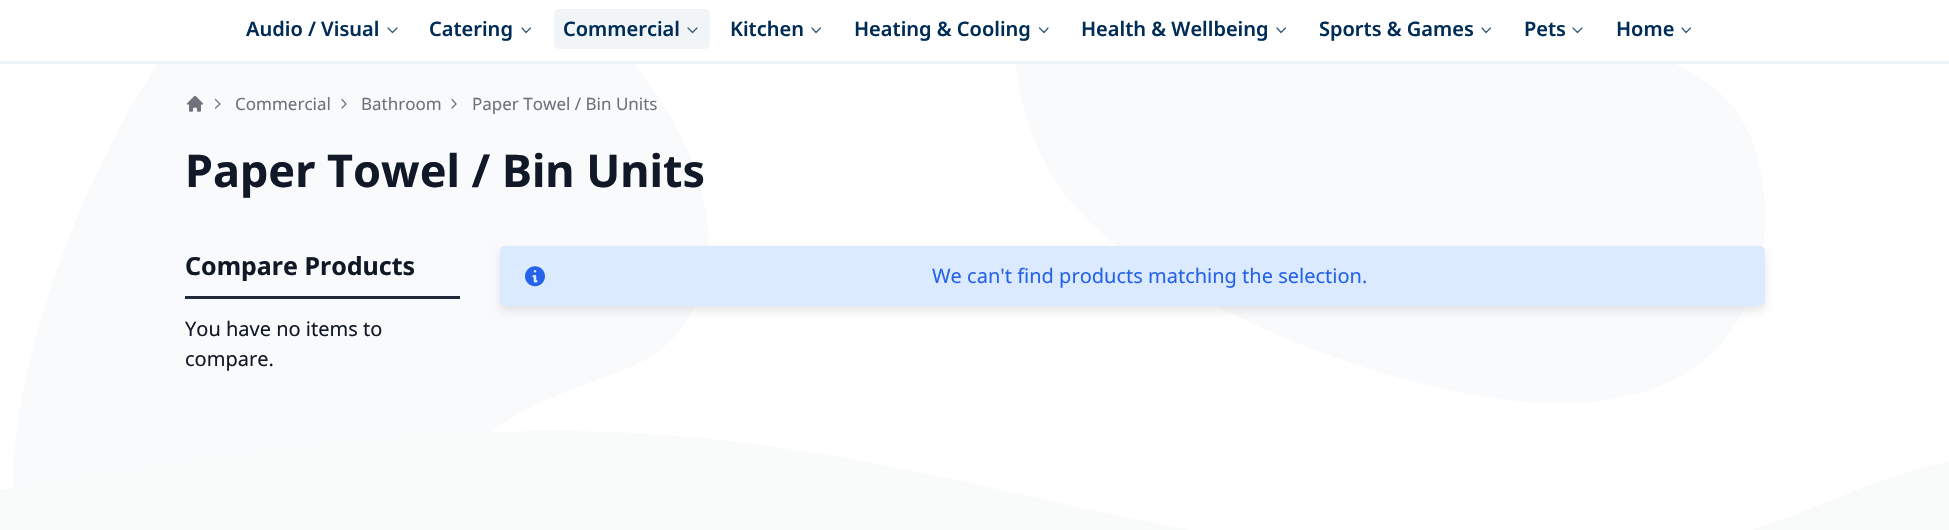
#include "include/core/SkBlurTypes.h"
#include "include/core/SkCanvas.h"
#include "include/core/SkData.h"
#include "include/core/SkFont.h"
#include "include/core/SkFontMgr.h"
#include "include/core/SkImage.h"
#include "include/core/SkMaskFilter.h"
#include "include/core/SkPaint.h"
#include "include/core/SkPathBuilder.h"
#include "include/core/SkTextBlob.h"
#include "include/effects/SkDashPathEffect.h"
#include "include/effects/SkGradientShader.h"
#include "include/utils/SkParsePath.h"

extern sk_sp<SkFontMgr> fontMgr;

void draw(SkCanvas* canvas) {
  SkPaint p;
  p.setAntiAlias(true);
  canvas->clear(SK_ColorWHITE);
  canvas->save();
  canvas->clipRect(SkRect::MakeLTRB(13, 0, 709, 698));
  p.setColor(SkColorSetRGB(249, 250, 251));
  canvas->drawPath(SkPathBuilder().moveTo(609, 38).cubicTo(677, 102, 736, 218, 695, 306).cubicTo(653, 398, 546, 360, 434, 480).cubicTo(346, 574, 361, 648, 278, 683).cubicTo(216, 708, 128, 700, 76, 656).cubicTo(-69, 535, 79, 211, 90, 188).cubicTo(136, 92, 181, -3, 292, -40).cubicTo(403, -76, 530, -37, 609, 38).close().detach(), p);
  canvas->restore();
  canvas->drawPath(SkPathBuilder().moveTo(1106, -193).cubicTo(1031, -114, 992, 13, 1028, 123).cubicTo(1065, 234, 1160, 280, 1256, 325).cubicTo(1279, 336, 1603, 485, 1724, 340).cubicTo(1751, 308, 1764, 264, 1765, 220).lineTo(1765, 210).cubicTo(1764, 185, 1760, 160, 1751, 138).cubicTo(1716, 55, 1642, 70, 1548, -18).cubicTo(1428, -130, 1466, -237, 1374, -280).cubicTo(1356, -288, 1336, -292, 1316, -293).lineTo(1307, -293).cubicTo(1233, -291, 1155, -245, 1106, -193).close().detach(), p);
  p.setColor(SK_ColorWHITE);
  canvas->drawRect(SkRect::MakeLTRB(160, 0, 1669, 61), p);
  p.setColor(SkColorSetRGB(239, 243, 246));
  canvas->drawRect(SkRect::MakeLTRB(0, 61, 1949, 64), p);
  p.setStyle(SkPaint::kStroke_Style);
  p.setStrokeWidth(1.2f);
  p.setStrokeCap(SkPaint::kRound_Cap);
  p.setStrokeJoin(SkPaint::kRound_Join);
  p.setColor(SkColorSetRGB(51, 87, 121));
  canvas->drawPath(SkPathBuilder().moveTo(397, 28).lineTo(392.5f, 32.5f).lineTo(388, 28).detach(), p);
  canvas->drawPath(SkPathBuilder().moveTo(530.5f, 28).lineTo(526, 32.5f).lineTo(522, 28).detach(), p);
  p.setStyle(SkPaint::kFill_Style);
  p.setColor(SkColorSetRGB(242, 245, 247));
  canvas->drawRoundRect(SkRect::MakeLTRB(554, 9, 710, 49), 5, 5, p);
  p.setStyle(SkPaint::kStroke_Style);
  p.setColor(SkColorSetRGB(48, 85, 119));
  canvas->drawPath(SkPathBuilder().moveTo(697, 28).lineTo(692.5f, 32.5f).lineTo(688, 28).detach(), p);
  p.setColor(SkColorSetRGB(51, 87, 121));
  canvas->drawPath(SkPathBuilder().moveTo(820.5f, 28).lineTo(816, 32.5f).lineTo(812, 28).detach(), p);
  canvas->drawPath(SkPathBuilder().moveTo(1048, 28).lineTo(1044, 32.5f).lineTo(1039.5f, 28).detach(), p);
  canvas->drawPath(SkPathBuilder().moveTo(1285.5f, 28).lineTo(1281, 32.5f).lineTo(1277, 28).detach(), p);
  canvas->drawPath(SkPathBuilder().moveTo(1490.5f, 28).lineTo(1486, 32.5f).lineTo(1482, 28).detach(), p);
  canvas->drawPath(SkPathBuilder().moveTo(1582, 28).lineTo(1577.5f, 32.5f).lineTo(1573, 28).detach(), p);
  canvas->drawPath(SkPathBuilder().moveTo(1690.5f, 28).lineTo(1686, 32.5f).lineTo(1682, 28).detach(), p);
  canvas->drawImageRect(SkImages::DeferredFromEncodedData(SkData::MakeFromFileName("images/1.png")), SkRect::MakeLTRB(187, 95, 203, 112), SkSamplingOptions());
  p.setColor(SkColorSetRGB(110, 114, 124));
  canvas->drawPath(SkPathBuilder().moveTo(215.5f, 99.5f).lineTo(220, 104).lineTo(215.5f, 108).detach(), p);
  canvas->drawPath(SkPathBuilder().moveTo(342, 99.5f).lineTo(346, 104).lineTo(342, 108).detach(), p);
  canvas->drawPath(SkPathBuilder().moveTo(452, 99.5f).lineTo(456, 104).lineTo(452, 108).detach(), p);
  p.setStyle(SkPaint::kFill_Style);
  p.setColor(SkColorSetRGB(31, 41, 55));
  canvas->drawRect(SkRect::MakeLTRB(185, 296, 460, 299), p);
  p.setColor(SkColorSetARGB(23, 0, 0, 0));
  p.setMaskFilter(SkMaskFilter::MakeBlur(kNormal_SkBlurStyle, 4.5f));
  canvas->drawRoundRect(SkRect::MakeLTRB(500, 251, 1765, 311), 5, 5, p);
  p.setMaskFilter(nullptr);
  p.setColor(SkColorSetRGB(219, 234, 254));
  canvas->drawRoundRect(SkRect::MakeLTRB(500, 246, 1765, 306), 5, 5, p);
  canvas->drawImageRect(SkImages::DeferredFromEncodedData(SkData::MakeFromFileName("images/2.png")), SkRect::MakeLTRB(525, 266, 545, 287), SkSamplingOptions());
  p.setColor(SkColorSetRGB(249, 250, 250));
  canvas->drawPath(SkPathBuilder().moveTo(1539, 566).cubicTo(1731, 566, 1845, 482, 1939, 464).cubicTo(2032, 445, 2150, 453, 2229, 464).cubicTo(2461, 494, 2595, 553, 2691, 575).lineTo(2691, 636).lineTo(-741, 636).lineTo(-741, 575).cubicTo(-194, 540, 255, 431, 556, 431).cubicTo(921, 431, 1154, 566, 1539, 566).close().detach(), p);
  SkFont font1(fontMgr->matchFamilyStyle("Noto Sans", SkFontStyle(600, SkFontStyle::kNormal_Width, SkFontStyle::kUpright_Slant)), 20);
  font1.setSubpixel(true);
  p.setColor(SkColorSetRGB(0, 45, 87));
  canvas->drawString("Audio / Visual", 246, 36, font1, p);
  canvas->drawString("Catering", 429, 36, font1, p);
  canvas->drawString("Commercial", 563, 36, font1, p);
  canvas->drawString("Kitchen", 730, 36, font1, p);
  canvas->drawString("Heating & Cooling", 854, 36, font1, p);
  canvas->drawString("Health & Wellbeing", 1081, 36, font1, p);
  canvas->drawString("Sports & Games", 1319, 36, font1, p);
  canvas->drawString("Pets", 1524, 36, font1, p);
  canvas->drawString("Home", 1616, 36, font1, p);
  SkFont font2(fontMgr->matchFamilyStyle("Noto Sans", SkFontStyle::Normal()), 17);
  font2.setSubpixel(true);
  p.setColor(SkColorSetRGB(110, 114, 124));
  canvas->drawString("Commercial", 235, 110, font2, p);
  canvas->drawString("Bathroom", 361, 110, font2, p);
  canvas->drawString("Paper Towel / Bin Units", 472, 110, font2, p);
  SkFont font3(fontMgr->matchFamilyStyle("Noto Sans", SkFontStyle::Bold()), 45);
  font3.setSubpixel(true);
  p.setColor(SkColorSetRGB(17, 24, 39));
  canvas->drawString("Paper Towel / Bin Units", 185, 187, font3, p);
  SkFont font4(fontMgr->matchFamilyStyle("Noto Sans", SkFontStyle::Bold()), 25);
  font4.setSubpixel(true);
  canvas->drawString("Compare Products", 185, 275, font4, p);
  SkFont font5(fontMgr->matchFamilyStyle("Noto Sans", SkFontStyle::Normal()), 20);
  font5.setSubpixel(true);
  canvas->drawString("You have no items to", 185, 336, font5, p);
  canvas->drawString("compare.", 185, 366, font5, p);
  p.setColor(SkColorSetRGB(37, 99, 235));
  canvas->drawString("We can't find products matching the selection.", 932, 283, font5, p);
}
